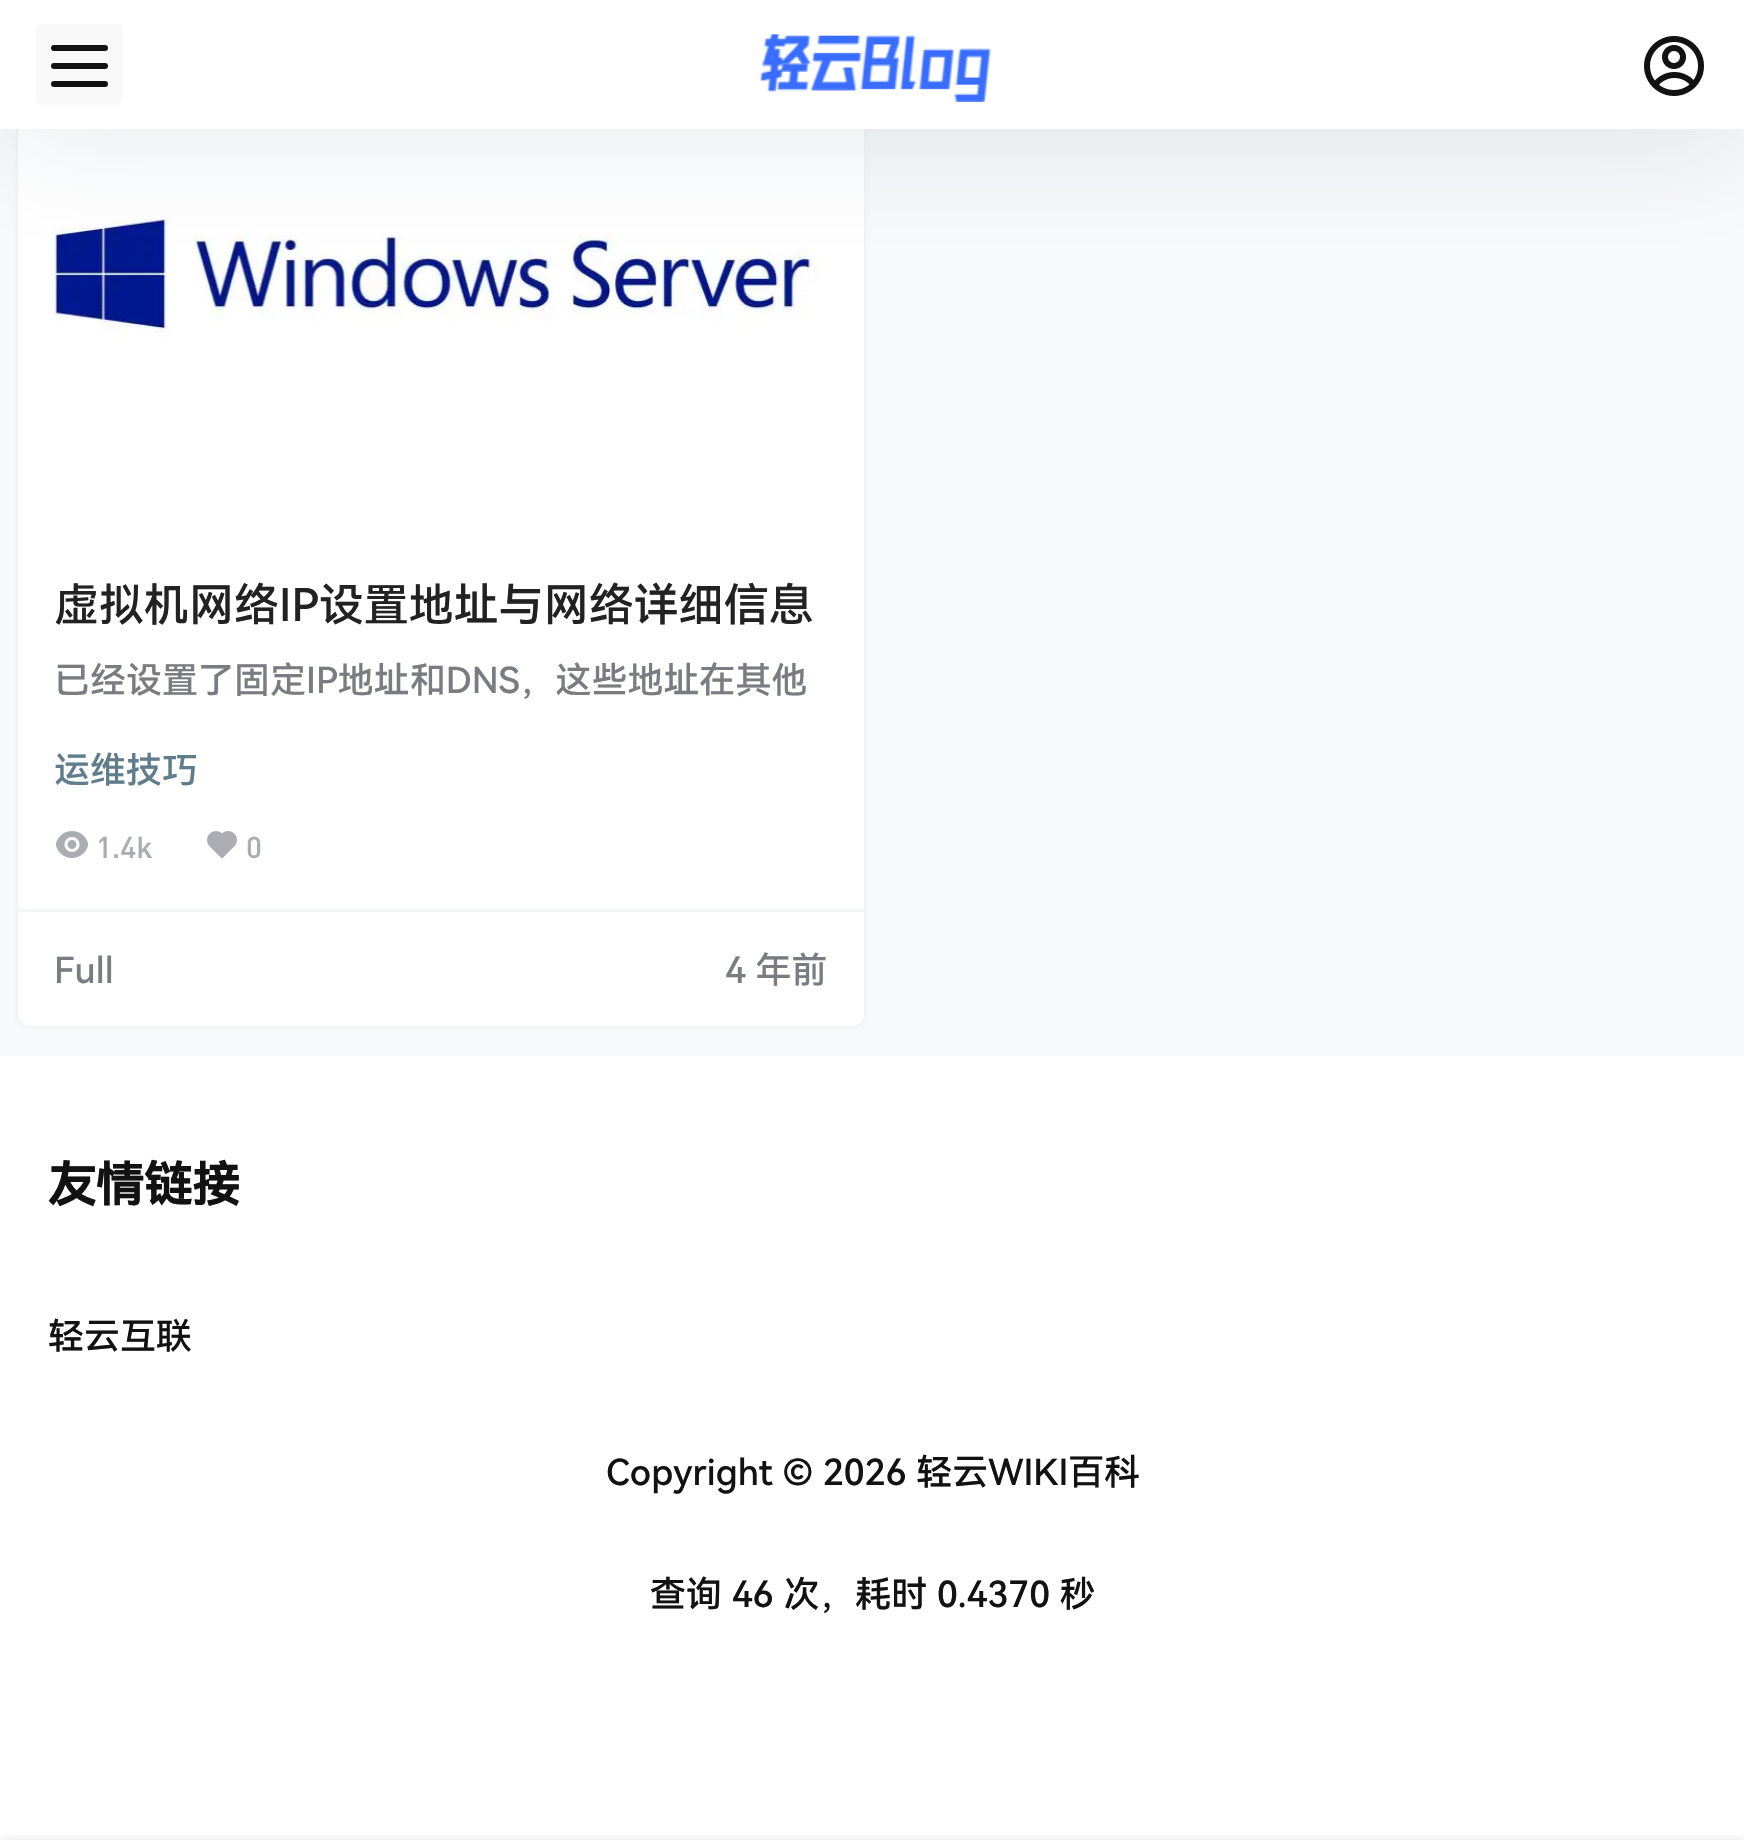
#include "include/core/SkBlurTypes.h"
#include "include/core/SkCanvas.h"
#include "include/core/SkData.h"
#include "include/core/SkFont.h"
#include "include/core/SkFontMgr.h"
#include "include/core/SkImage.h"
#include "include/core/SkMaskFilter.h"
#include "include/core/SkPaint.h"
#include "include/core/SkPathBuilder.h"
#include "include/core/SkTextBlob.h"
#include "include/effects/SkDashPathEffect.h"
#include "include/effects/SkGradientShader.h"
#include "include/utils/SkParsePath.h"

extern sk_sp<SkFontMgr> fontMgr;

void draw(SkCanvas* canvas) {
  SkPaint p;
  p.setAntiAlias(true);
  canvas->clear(SkColorSetRGB(247, 249, 250));
  p.setColor(SkColorSetARGB(26, 98, 124, 153));
  p.setMaskFilter(SkMaskFilter::MakeBlur(kNormal_SkBlurStyle, 3));
  canvas->drawRoundRect(SkRect::MakeLTRB(18, 18, 864, 1026), 12, 12, p);
  p.setMaskFilter(nullptr);
  p.setColor(SK_ColorWHITE);
  canvas->drawRoundRect(SkRect::MakeLTRB(18, 18, 864, 1026), 12, 12, p);
  canvas->drawImageRect(SkImages::DeferredFromEncodedData(SkData::MakeFromFileName("images/3.png")), SkRect::MakeLTRB(18, 129, 864, 540), SkSamplingOptions());
  p.setColor(SkColorSetARGB(26, 17, 58, 93));
  p.setMaskFilter(SkMaskFilter::MakeBlur(kNormal_SkBlurStyle, 60));
  canvas->drawRect(SkRect::MakeLTRB(0, -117, 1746, 144), p);
  p.setMaskFilter(nullptr);
  p.setColor(SK_ColorWHITE);
  canvas->drawRect(SkRect::MakeLTRB(0, 0, 1744, 129), p);
  p.setColor(SkColorSetRGB(249, 249, 249));
  canvas->drawRoundRect(SkRect::MakeLTRB(36, 24, 123, 105), 6, 6, p);
  p.setColor(SkColorSetRGB(18, 18, 18));
  canvas->drawRoundRect(SkRect::MakeLTRB(51, 45, 108, 51), 3, 3, p);
  canvas->drawRoundRect(SkRect::MakeLTRB(51, 63, 108, 69), 3, 3, p);
  canvas->drawRoundRect(SkRect::MakeLTRB(51, 81, 108, 87), 3, 3, p);
  canvas->drawImageRect(SkImages::DeferredFromEncodedData(SkData::MakeFromFileName("images/1.png")), SkRect::MakeLTRB(759, 34, 991, 102), SkSamplingOptions());
  canvas->drawImageRect(SkImages::DeferredFromEncodedData(SkData::MakeFromFileName("images/2.png")), SkRect::MakeLTRB(1644, 36, 1704, 96), SkSamplingOptions());
  canvas->drawImageRect(SkImages::DeferredFromEncodedData(SkData::MakeFromFileName("images/4.png")), SkRect::MakeLTRB(55, 831, 89, 858), SkSamplingOptions());
  canvas->drawImageRect(SkImages::DeferredFromEncodedData(SkData::MakeFromFileName("images/5.png")), SkRect::MakeLTRB(207, 831, 237, 859), SkSamplingOptions());
  p.setColor(SkColorSetRGB(245, 246, 247));
  canvas->drawRect(SkRect::MakeLTRB(18, 909, 864, 912), p);
  p.setColor(SK_ColorWHITE);
  canvas->drawRect(SkRect::MakeLTRB(0, 1056, 1744, 1840), p);
  p.setColor(SkColorSetARGB(26, 26, 26, 26));
  p.setMaskFilter(SkMaskFilter::MakeBlur(kNormal_SkBlurStyle, 4.5f));
  canvas->drawRect(SkRect::MakeLTRB(0, 1839, 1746, 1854), p);
  p.setMaskFilter(nullptr);
  SkFont font1(fontMgr->matchFamilyStyle("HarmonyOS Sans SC", SkFontStyle(500, SkFontStyle::kNormal_Width, SkFontStyle::kUpright_Slant)), 45);
  font1.setSubpixel(true);
  p.setColor(SkColorSetRGB(34, 34, 34));
  canvas->drawString("虚拟机网络IP设置地址与网络详细信息", 54, 621, font1, p);
  SkFont font2(fontMgr->matchFamilyStyle("HarmonyOS Sans SC", SkFontStyle(500, SkFontStyle::kNormal_Width, SkFontStyle::kUpright_Slant)), 36);
  font2.setSubpixel(true);
  p.setColor(SkColorSetRGB(121, 124, 128));
  canvas->drawString("已经设置了固定IP地址和DNS，这些地址在其他", 54, 693, font2, p);
  p.setColor(SkColorSetRGB(96, 125, 139));
  canvas->drawString("运维技巧", 54, 783, font2, p);
  SkFont font3(fontMgr->matchFamilyStyle("DIN", SkFontStyle(500, SkFontStyle::kNormal_Width, SkFontStyle::kUpright_Slant)), 30);
  font3.setSubpixel(true);
  p.setColor(SkColorSetRGB(170, 174, 179));
  canvas->drawString("1.4k", 96, 858, font3, p);
  canvas->drawString("0", 246, 858, font3, p);
  p.setColor(SkColorSetRGB(121, 124, 128));
  canvas->drawString("Full", 54, 983, font2, p);
  canvas->drawString("4 年前", 725, 983, font2, p);
  SkFont font4(fontMgr->matchFamilyStyle("HarmonyOS Sans SC", SkFontStyle::Bold()), 48);
  font4.setSubpixel(true);
  p.setColor(SkColorSetRGB(18, 18, 18));
  canvas->drawString("友情链接", 48, 1202, font4, p);
  canvas->drawString("轻云互联", 48, 1349, font2, p);
  canvas->drawString("Copyright © 2026 轻云WIKI百科", 606, 1485, font2, p);
  canvas->drawString("查询 46 次，耗时 0.4370 秒", 650, 1607, font2, p);
}
